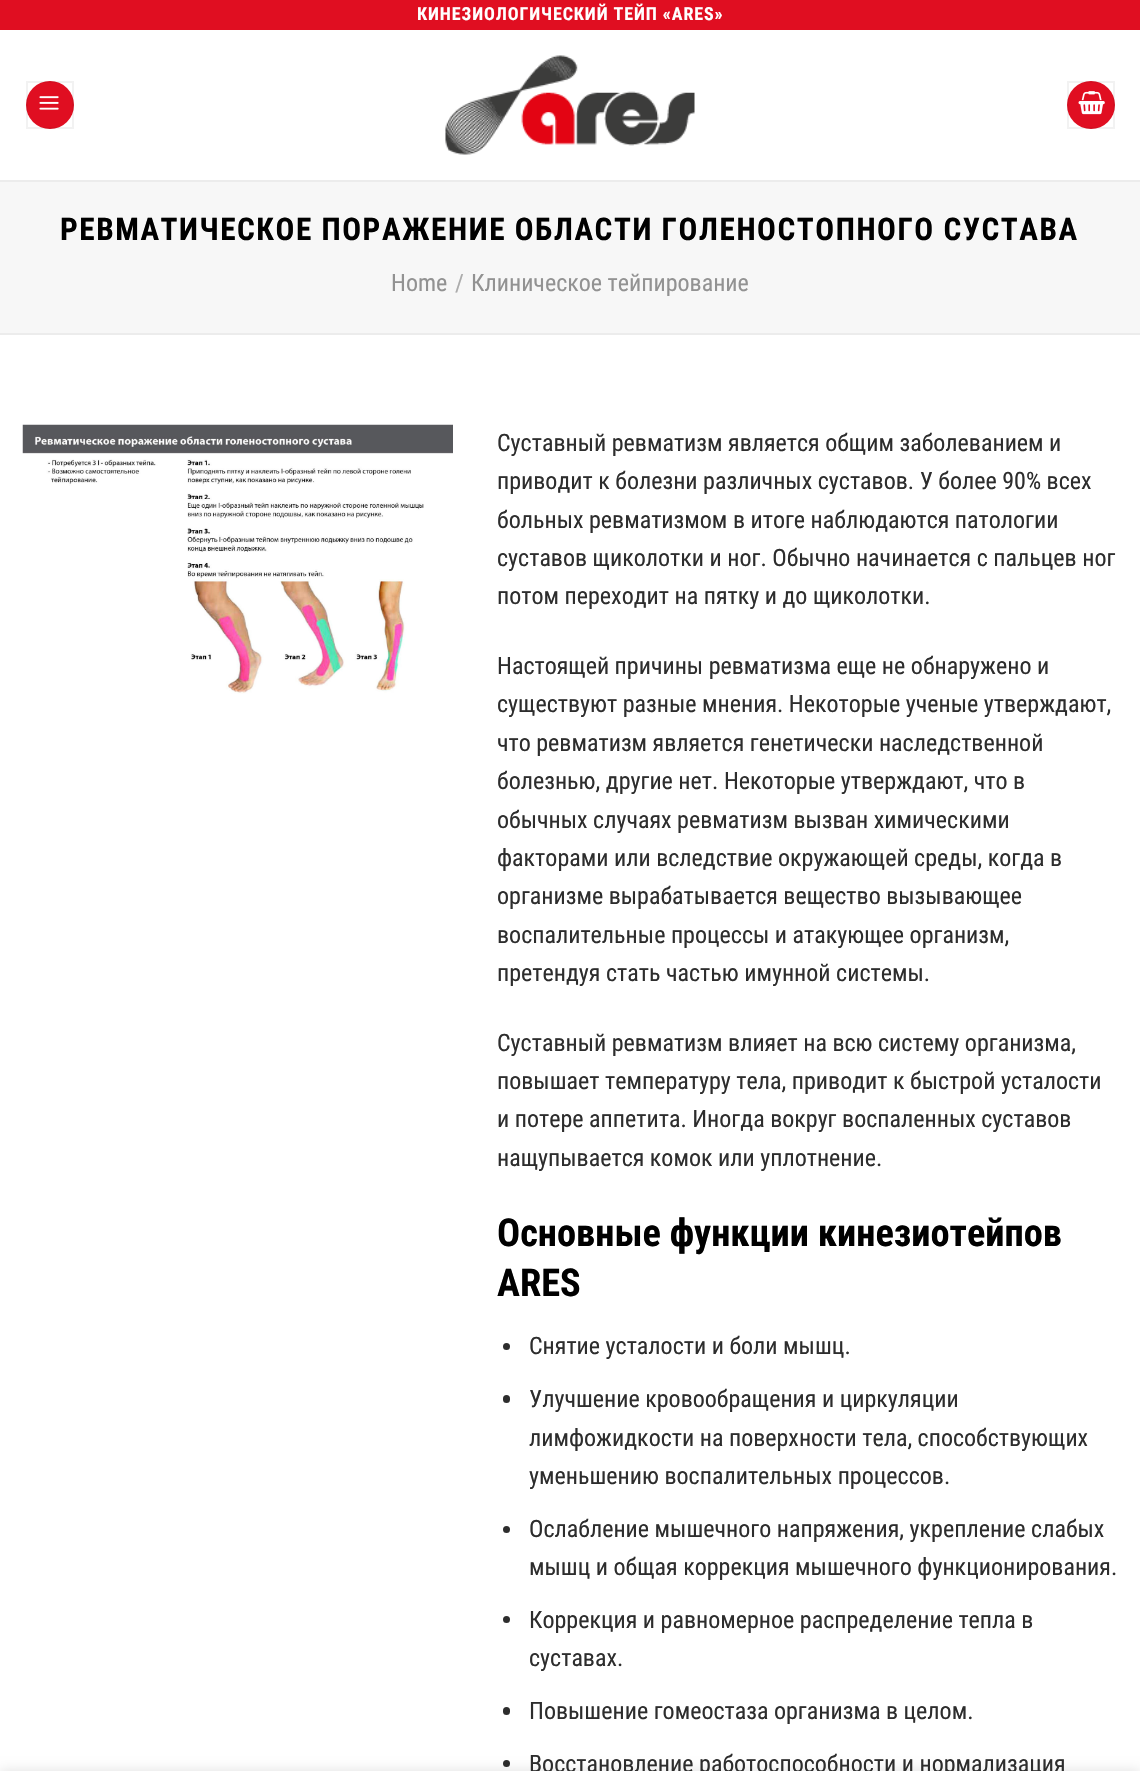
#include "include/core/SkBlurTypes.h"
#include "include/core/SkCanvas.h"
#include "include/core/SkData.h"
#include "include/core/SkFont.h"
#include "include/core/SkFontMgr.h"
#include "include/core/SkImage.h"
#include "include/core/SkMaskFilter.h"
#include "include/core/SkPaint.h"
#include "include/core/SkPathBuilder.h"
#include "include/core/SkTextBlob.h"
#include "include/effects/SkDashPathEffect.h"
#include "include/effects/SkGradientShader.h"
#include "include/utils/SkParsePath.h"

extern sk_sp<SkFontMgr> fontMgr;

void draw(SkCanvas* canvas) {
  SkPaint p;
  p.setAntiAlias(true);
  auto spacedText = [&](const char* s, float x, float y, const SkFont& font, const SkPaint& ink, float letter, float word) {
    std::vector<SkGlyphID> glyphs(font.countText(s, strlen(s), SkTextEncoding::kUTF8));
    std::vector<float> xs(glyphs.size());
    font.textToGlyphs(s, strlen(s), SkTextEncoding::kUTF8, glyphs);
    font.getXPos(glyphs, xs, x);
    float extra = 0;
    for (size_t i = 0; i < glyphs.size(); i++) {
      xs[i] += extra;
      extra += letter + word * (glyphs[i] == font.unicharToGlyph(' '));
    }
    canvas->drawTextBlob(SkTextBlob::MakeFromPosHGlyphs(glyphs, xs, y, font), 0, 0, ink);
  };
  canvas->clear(SK_ColorWHITE);
  p.setColor(SkColorSetRGB(224, 14, 33));
  canvas->drawRect(SkRect::MakeLTRB(0, 0, 1140, 30), p);
  canvas->drawCircle(50, 105, 24, p);
  p.setStyle(SkPaint::kStroke_Style);
  p.setStrokeWidth(2);
  p.setColor(SkColorSetARGB(13, 0, 0, 0));
  canvas->drawRect(SkRect::MakeLTRB(27, 82, 73, 128), p);
  canvas->drawImageRect(SkImages::DeferredFromEncodedData(SkData::MakeFromFileName("images/1.png")), SkRect::MakeLTRB(39, 96, 59, 110), SkSamplingOptions());
  canvas->drawImageRect(SkImages::DeferredFromEncodedData(SkData::MakeFromFileName("images/2.png")), SkRect::MakeLTRB(445, 55, 695, 155), SkSamplingOptions());
  p.setStyle(SkPaint::kFill_Style);
  p.setColor(SkColorSetRGB(224, 14, 33));
  canvas->drawCircle(1091, 105, 24, p);
  p.setStyle(SkPaint::kStroke_Style);
  p.setColor(SkColorSetARGB(13, 0, 0, 0));
  canvas->drawRect(SkRect::MakeLTRB(1068, 82, 1114, 128), p);
  canvas->drawImageRect(SkImages::DeferredFromEncodedData(SkData::MakeFromFileName("images/3.png")), SkRect::MakeLTRB(1078, 91, 1105, 115), SkSamplingOptions());
  p.setStyle(SkPaint::kFill_Style);
  p.setColor(SkColorSetRGB(247, 247, 247));
  canvas->drawRect(SkRect::MakeLTRB(0, 182, 1140, 333), p);
  p.setColor(SkColorSetRGB(236, 236, 236));
  canvas->drawRect(SkRect::MakeLTRB(0, 180, 1140, 182), p);
  canvas->drawRect(SkRect::MakeLTRB(0, 333, 1140, 335), p);
  canvas->drawImageRect(SkImages::DeferredFromEncodedData(SkData::MakeFromFileName("images/4.png")), SkRect::MakeLTRB(22, 424, 453, 694), SkSamplingOptions());
  p.setColor(SkColorSetRGB(45, 45, 45));
  canvas->drawCircle(506.5f, 1346.5f, 3.5f, p);
  canvas->drawRoundRect(SkRect::MakeLTRB(503, 1395, 510, 1403), 3.5f, 3.5f, p);
  canvas->drawCircle(506.5f, 1529.5f, 3.5f, p);
  canvas->drawCircle(506.5f, 1619.5f, 3.5f, p);
  canvas->drawRoundRect(SkRect::MakeLTRB(503, 1707, 510, 1715), 3.5f, 3.5f, p);
  canvas->drawCircle(506.5f, 1763.5f, 3.5f, p);
  p.setColor(SkColorSetARGB(36, 0, 0, 0));
  p.setMaskFilter(SkMaskFilter::MakeBlur(kNormal_SkBlurStyle, 7));
  canvas->drawRect(SkRect::MakeLTRB(0, 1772, 1140, 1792), p);
  p.setMaskFilter(nullptr);
  SkFont font1(fontMgr->matchFamilyStyle("Roboto Condensed", SkFontStyle::Bold()), 18);
  font1.setSubpixel(true);
  p.setColor(SK_ColorWHITE);
  spacedText("КИНЕЗИОЛОГИЧЕСКИЙ ТЕЙП «ARES»", 417, 20, font1, p, 0.9f, 0);
  SkFont font2(fontMgr->matchFamilyStyle("Roboto Condensed", SkFontStyle::Bold()), 31.2f);
  font2.setSubpixel(true);
  p.setColor(SK_ColorBLACK);
  spacedText("РЕВМАТИЧЕСКОЕ ПОРАЖЕНИЕ ОБЛАСТИ ГОЛЕНОСТОПНОГО СУСТАВА", 60, 240, font2, p, 1.55f, 0);
  SkFont font3(fontMgr->matchFamilyStyle("Roboto Condensed", SkFontStyle::Normal()), 24);
  font3.setSubpixel(true);
  p.setColor(SkColorSetRGB(146, 146, 146));
  canvas->drawString("Home", 391, 291, font3, p);
  p.setColor(SkColorSetRGB(172, 172, 172));
  canvas->drawString("/", 455, 291, font3, p);
  p.setColor(SkColorSetRGB(146, 146, 146));
  canvas->drawString("Клиническое тейпирование", 471, 291, font3, p);
  p.setColor(SkColorSetRGB(45, 45, 45));
  canvas->drawString("Суставный ревматизм является общим заболеванием и", 497, 451, font3, p);
  canvas->drawString("приводит к болезни различных суставов. У более 90% всех", 497, 489, font3, p);
  canvas->drawString("больных ревматизмом в итоге наблюдаются патологии", 497, 528, font3, p);
  canvas->drawString("суставов щиколотки и ног. Обычно начинается с пальцев ног", 497, 566, font3, p);
  canvas->drawString("потом переходит на пятку и до щиколотки.", 497, 604, font3, p);
  canvas->drawString("Настоящей причины ревматизма еще не обнаружено и", 497, 674, font3, p);
  canvas->drawString("существуют разные мнения. Некоторые ученые утверждают,", 497, 712, font3, p);
  canvas->drawString("что ревматизм является генетически наследственной", 497, 751, font3, p);
  canvas->drawString("болезнью, другие нет. Некоторые утверждают, что в", 497, 789, font3, p);
  canvas->drawString("обычных случаях ревматизм вызван химическими", 497, 828, font3, p);
  canvas->drawString("факторами или вследствие окружающей среды, когда в", 497, 866, font3, p);
  canvas->drawString("организме вырабатывается вещество вызывающее", 497, 904, font3, p);
  canvas->drawString("воспалительные процессы и атакующее организм,", 497, 943, font3, p);
  canvas->drawString("претендуя стать частью имунной системы.", 497, 981, font3, p);
  canvas->drawString("Суставный ревматизм влияет на всю систему организма,", 497, 1051, font3, p);
  canvas->drawString("повышает температуру тела, приводит к быстрой усталости", 497, 1089, font3, p);
  canvas->drawString("и потере аппетита. Иногда вокруг воспаленных суставов", 497, 1127, font3, p);
  canvas->drawString("нащупывается комок или уплотнение.", 497, 1166, font3, p);
  SkFont font4(fontMgr->matchFamilyStyle("Roboto Condensed", SkFontStyle::Bold()), 38.4f);
  font4.setSubpixel(true);
  p.setColor(SK_ColorBLACK);
  canvas->drawString("Основные функции кинезиотейпов", 497, 1246, font4, p);
  canvas->drawString("ARES", 497, 1296, font4, p);
  p.setColor(SkColorSetRGB(45, 45, 45));
  canvas->drawString("Снятие усталости и боли мышц.", 529, 1354, font3, p);
  canvas->drawString("Улучшение кровообращения и циркуляции", 529, 1407, font3, p);
  canvas->drawString("лимфожидкости на поверхности тела, способствующих", 529, 1446, font3, p);
  canvas->drawString("уменьшению воспалительных процессов.", 529, 1484, font3, p);
  canvas->drawString("Ослабление мышечного напряжения, укрепление слабых", 529, 1537, font3, p);
  canvas->drawString("мышц и общая коррекция мышечного функционирования.", 529, 1575, font3, p);
  canvas->drawString("Коррекция и равномерное распределение тепла в", 529, 1628, font3, p);
  canvas->drawString("суставах.", 529, 1666, font3, p);
  canvas->drawString("Повышение гомеостаза организма в целом.", 529, 1719, font3, p);
  canvas->drawString("Восстановление работоспособности и нормализация", 529, 1772, font3, p);
}
